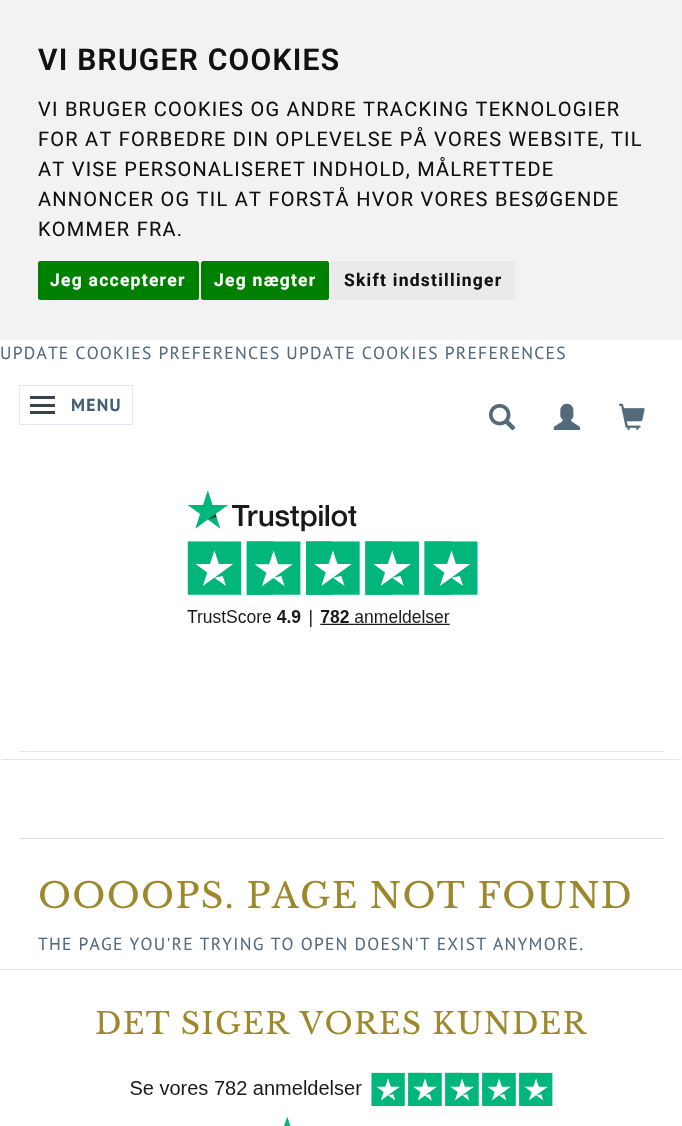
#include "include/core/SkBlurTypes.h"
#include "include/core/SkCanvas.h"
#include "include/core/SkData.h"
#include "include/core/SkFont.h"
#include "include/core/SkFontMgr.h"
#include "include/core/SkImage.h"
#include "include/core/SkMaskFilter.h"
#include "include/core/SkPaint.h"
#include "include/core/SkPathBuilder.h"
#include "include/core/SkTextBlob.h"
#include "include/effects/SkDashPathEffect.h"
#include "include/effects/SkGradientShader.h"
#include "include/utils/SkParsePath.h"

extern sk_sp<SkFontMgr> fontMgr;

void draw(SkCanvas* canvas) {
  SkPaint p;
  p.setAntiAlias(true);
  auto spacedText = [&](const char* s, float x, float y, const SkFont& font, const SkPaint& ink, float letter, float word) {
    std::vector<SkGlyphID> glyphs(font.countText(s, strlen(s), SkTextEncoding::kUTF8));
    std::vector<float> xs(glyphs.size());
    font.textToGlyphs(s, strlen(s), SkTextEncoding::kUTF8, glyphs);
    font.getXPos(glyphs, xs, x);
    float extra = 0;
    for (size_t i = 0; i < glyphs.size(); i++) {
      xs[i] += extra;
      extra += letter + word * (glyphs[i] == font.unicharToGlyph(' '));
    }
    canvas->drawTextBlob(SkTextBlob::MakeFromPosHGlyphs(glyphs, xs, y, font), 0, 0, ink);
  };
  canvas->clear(SK_ColorWHITE);
  p.setColor(SkColorSetRGB(242, 242, 242));
  canvas->drawRect(SkRect::MakeLTRB(0, 0, 682, 340), p);
  p.setColor(SkColorSetRGB(0, 128, 0));
  canvas->drawRoundRect(SkRect::MakeLTRB(38, 261, 199, 300), 2.5f, 2.5f, p);
  canvas->drawRoundRect(SkRect::MakeLTRB(201, 261, 329, 300), 2.5f, 2.5f, p);
  p.setColor(SkColorSetRGB(234, 234, 234));
  canvas->drawRoundRect(SkRect::MakeLTRB(331, 261, 515, 300), 2.5f, 2.5f, p);
  p.setStyle(SkPaint::kStroke_Style);
  p.setStrokeWidth(1);
  p.setColor(SkColorSetRGB(224, 231, 237));
  canvas->drawRect(SkRect::MakeLTRB(19.5f, 385.5f, 132.5f, 424.5f), p);
  p.setStyle(SkPaint::kFill_Style);
  p.setColor(SkColorSetRGB(56, 66, 73));
  canvas->drawRect(SkRect::MakeLTRB(30, 396, 55, 399), p);
  canvas->drawRect(SkRect::MakeLTRB(30, 404, 55, 407), p);
  canvas->drawRect(SkRect::MakeLTRB(30, 411, 55, 414), p);
  canvas->drawImageRect(SkImages::DeferredFromEncodedData(SkData::MakeFromFileName("images/1.png")), SkRect::MakeLTRB(488, 403, 516, 431), SkSamplingOptions());
  canvas->drawImageRect(SkImages::DeferredFromEncodedData(SkData::MakeFromFileName("images/2.png")), SkRect::MakeLTRB(553, 403, 580, 430), SkSamplingOptions());
  canvas->drawImageRect(SkImages::DeferredFromEncodedData(SkData::MakeFromFileName("images/3.png")), SkRect::MakeLTRB(618, 403, 645, 430), SkSamplingOptions());
  canvas->drawImageRect(SkImages::DeferredFromEncodedData(SkData::MakeFromFileName("images/4.png")), SkRect::MakeLTRB(187, 490, 478, 627), SkSamplingOptions());
  p.setColor(SkColorSetRGB(224, 231, 237));
  canvas->drawPath(SkPathBuilder().moveTo(19, 751).lineTo(664, 751).lineTo(662, 752).lineTo(20, 752).close().detach(), p);
  canvas->drawPath(SkPathBuilder().moveTo(1, 759).lineTo(681, 759).lineTo(680, 760).lineTo(2, 760).close().detach(), p);
  p.setColor(SkColorSetRGB(221, 221, 221));
  canvas->drawRect(SkRect::MakeLTRB(19, 838, 664, 839), p);
  p.setColor(SkColorSetRGB(224, 231, 237));
  canvas->drawRect(SkRect::MakeLTRB(0, 969, 682, 970), p);
  canvas->drawImageRect(SkImages::DeferredFromEncodedData(SkData::MakeFromFileName("images/5.png")), SkRect::MakeLTRB(130, 1072, 553, 1126), SkSamplingOptions());
  SkFont font1(fontMgr->matchFamilyStyle("Roboto", SkFontStyle(600, SkFontStyle::kNormal_Width, SkFontStyle::kUpright_Slant)), 30);
  font1.setSubpixel(true);
  p.setColor(SkColorSetRGB(17, 17, 17));
  spacedText("VI BRUGER COOKIES", 38, 70, font1, p, 1.25f, 0);
  SkFont font2(fontMgr->matchFamilyStyle("Roboto", SkFontStyle::Normal()), 20);
  font2.setSubpixel(true);
  spacedText("VI BRUGER COOKIES OG ANDRE TRACKING TEKNOLOGIER", 38, 116, font2, p, 1.25f, 0);
  spacedText("FOR AT FORBEDRE DIN OPLEVELSE PÅ VORES WEBSITE, TIL", 38, 146, font2, p, 1.25f, 0);
  spacedText("AT VISE PERSONALISERET INDHOLD, MÅLRETTEDE", 38, 176, font2, p, 1.25f, 0);
  spacedText("ANNONCER OG TIL AT FORSTÅ HVOR VORES BESØGENDE", 38, 206, font2, p, 1.25f, 0);
  spacedText("KOMMER FRA.", 38, 236, font2, p, 1.25f, 0);
  SkFont font3(fontMgr->matchFamilyStyle("Roboto", SkFontStyle::Bold()), 17.5f);
  font3.setSubpixel(true);
  p.setColor(SK_ColorWHITE);
  spacedText("Jeg accepterer", 50, 286, font3, p, 1.25f, 0);
  spacedText("Jeg nægter", 214, 286, font3, p, 1.25f, 0);
  p.setColor(SkColorSetRGB(17, 17, 17));
  spacedText("Skift indstillinger", 344, 286, font3, p, 1.25f, 0);
  SkFont font4(fontMgr->matchFamilyStyle("PT Sans", SkFontStyle::Normal()), 17.5f);
  font4.setSubpixel(true);
  p.setColor(SkColorSetRGB(82, 106, 124));
  spacedText("UPDATE COOKIES PREFERENCES UPDATE COOKIES PREFERENCES", 0, 359, font4, p, 1.25f, 0);
  SkFont font5(fontMgr->matchFamilyStyle("PT Sans", SkFontStyle::Bold()), 17.5f);
  font5.setSubpixel(true);
  p.setColor(SkColorSetRGB(66, 95, 116));
  spacedText("MENU", 71, 411, font5, p, 1.25f, 0);
  SkFont font6(fontMgr->matchFamilyStyle("Libre Baskerville", SkFontStyle::Normal()), 35);
  font6.setSubpixel(true);
  p.setColor(SkColorSetRGB(157, 136, 43));
  spacedText("OOOOPS. PAGE NOT FOUND", 38, 908, font6, p, 1.25f, 0);
  p.setColor(SkColorSetRGB(82, 106, 124));
  spacedText("THE PAGE YOU'RE TRYING TO OPEN DOESN'T EXIST ANYMORE.", 38, 950, font4, p, 1.25f, 0);
  SkFont font7(fontMgr->matchFamilyStyle("Libre Baskerville", SkFontStyle::Normal()), 29.9f);
  font7.setSubpixel(true);
  p.setColor(SkColorSetRGB(157, 136, 43));
  spacedText("DET SIGER VORES KUNDER", 95, 1034, font7, p, 1.25f, 0);
}
